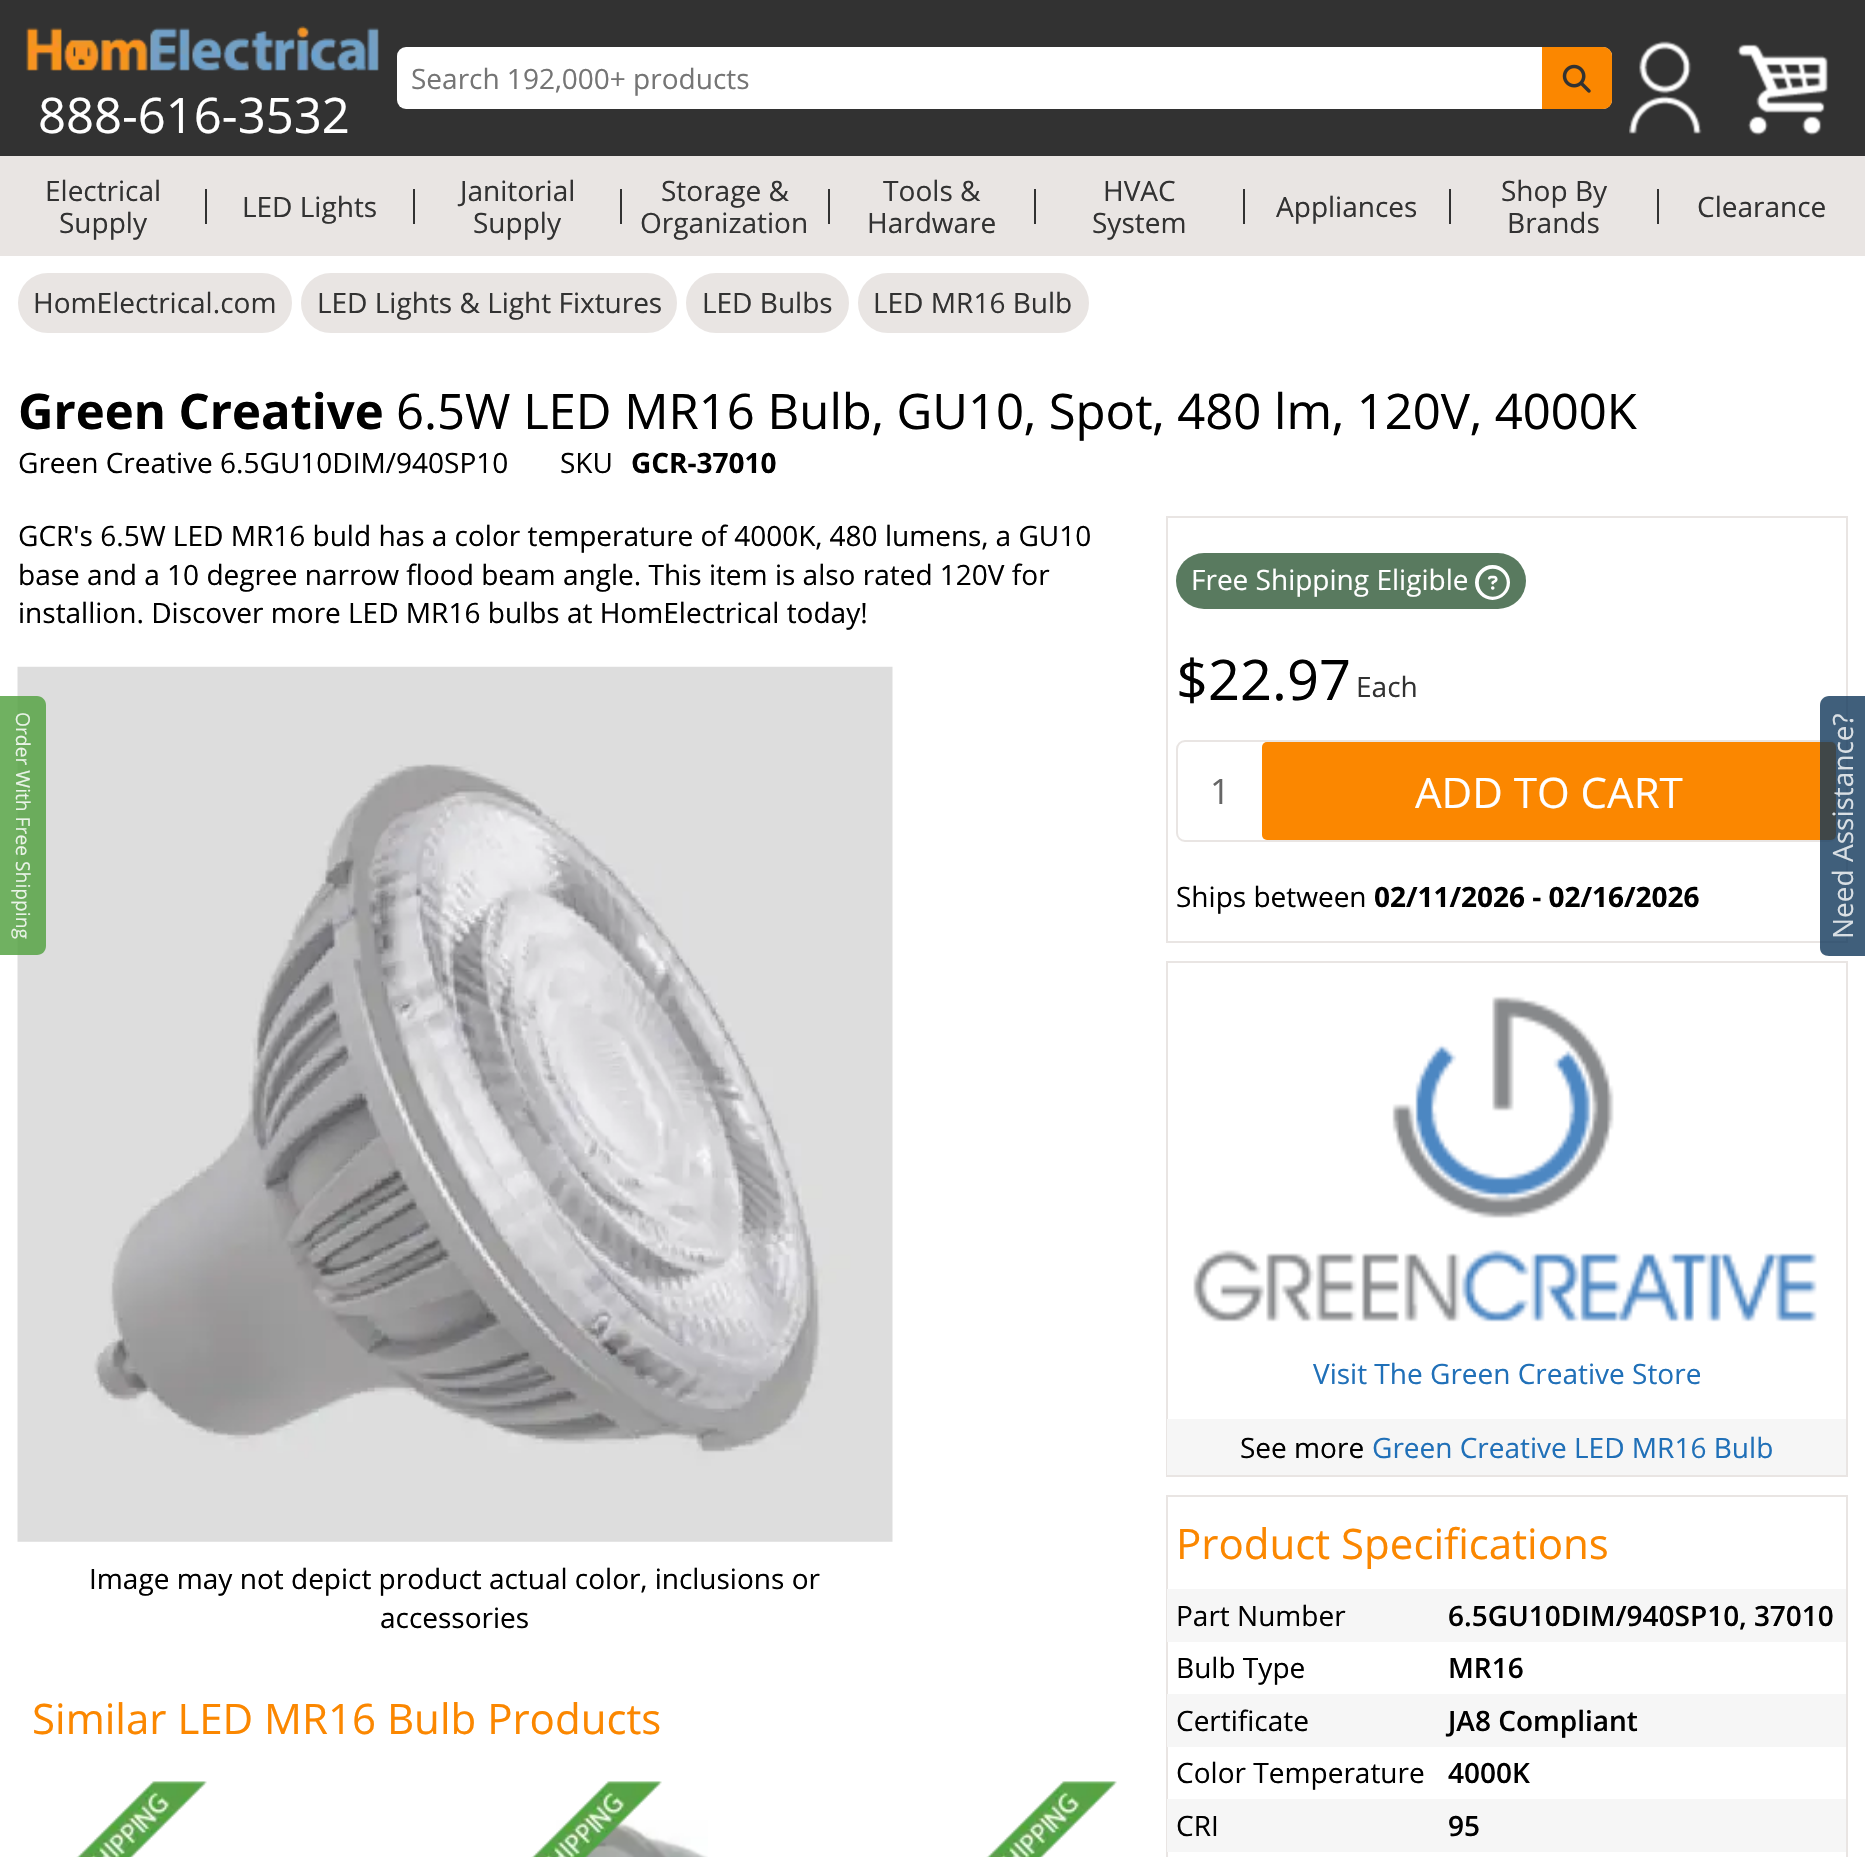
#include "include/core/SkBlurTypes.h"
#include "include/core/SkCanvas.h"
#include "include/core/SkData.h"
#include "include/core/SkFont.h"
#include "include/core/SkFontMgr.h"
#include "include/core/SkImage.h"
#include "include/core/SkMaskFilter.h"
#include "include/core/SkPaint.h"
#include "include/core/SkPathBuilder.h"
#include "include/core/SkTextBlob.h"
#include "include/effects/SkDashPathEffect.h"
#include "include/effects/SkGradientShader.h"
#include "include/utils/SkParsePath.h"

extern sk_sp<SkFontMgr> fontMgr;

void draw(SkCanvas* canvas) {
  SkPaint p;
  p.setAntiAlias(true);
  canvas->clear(SK_ColorWHITE);
  p.setColor(SkColorSetRGB(50, 50, 50));
  canvas->drawRect(SkRect::MakeLTRB(0, 0, 1865, 156), p);
  p.setColor(SK_ColorWHITE);
  canvas->drawRoundRect(SkRect::MakeLTRB(397, 47, 1612, 109), 9, 9, p);
  p.setColor(SkColorSetRGB(251, 135, 0));
  canvas->drawPath(SkPathBuilder().moveTo(1542, 47).lineTo(1603, 47).cubicTo(1608, 47, 1612, 51, 1612, 56).lineTo(1612, 100).cubicTo(1612, 105, 1608, 109, 1603, 109).lineTo(1542, 109).close().detach(), p);
  canvas->drawImageRect(SkImages::DeferredFromEncodedData(SkData::MakeFromFileName("images/1.png")), SkRect::MakeLTRB(1562, 64, 1591, 93), SkSamplingOptions());
  canvas->drawImageRect(SkImages::DeferredFromEncodedData(SkData::MakeFromFileName("images/2.png")), SkRect::MakeLTRB(1629, 41, 1702, 134), SkSamplingOptions());
  canvas->drawImageRect(SkImages::DeferredFromEncodedData(SkData::MakeFromFileName("images/3.png")), SkRect::MakeLTRB(1737, 44, 1829, 136), SkSamplingOptions());
  canvas->drawImageRect(SkImages::DeferredFromEncodedData(SkData::MakeFromFileName("images/4.png")), SkRect::MakeLTRB(26, 26, 379, 71), SkSamplingOptions());
  p.setColor(SkColorSetRGB(233, 229, 227));
  canvas->drawRect(SkRect::MakeLTRB(0, 156, 1865, 256), p);
  p.setColor(SkColorSetRGB(50, 50, 50));
  canvas->drawRect(SkRect::MakeLTRB(205, 189, 207, 224), p);
  canvas->drawRect(SkRect::MakeLTRB(413, 189, 415, 224), p);
  canvas->drawRect(SkRect::MakeLTRB(620, 189, 622, 224), p);
  canvas->drawRect(SkRect::MakeLTRB(828, 189, 830, 224), p);
  canvas->drawRect(SkRect::MakeLTRB(1034, 189, 1036, 224), p);
  canvas->drawRect(SkRect::MakeLTRB(1243, 189, 1245, 224), p);
  canvas->drawRect(SkRect::MakeLTRB(1449, 189, 1451, 224), p);
  canvas->drawRect(SkRect::MakeLTRB(1657, 189, 1659, 224), p);
  p.setColor(SkColorSetRGB(233, 229, 227));
  canvas->drawRoundRect(SkRect::MakeLTRB(19, 274, 291, 332), 29, 29, p);
  p.setStyle(SkPaint::kStroke_Style);
  p.setStrokeWidth(2);
  canvas->drawRoundRect(SkRect::MakeLTRB(19, 274, 291, 332), 29, 29, p);
  p.setStyle(SkPaint::kFill_Style);
  canvas->drawRoundRect(SkRect::MakeLTRB(302, 274, 676, 332), 29, 29, p);
  p.setStyle(SkPaint::kStroke_Style);
  canvas->drawRoundRect(SkRect::MakeLTRB(302, 274, 676, 332), 29, 29, p);
  p.setStyle(SkPaint::kFill_Style);
  canvas->drawRoundRect(SkRect::MakeLTRB(687, 274, 848, 332), 29, 29, p);
  p.setStyle(SkPaint::kStroke_Style);
  canvas->drawRoundRect(SkRect::MakeLTRB(687, 274, 848, 332), 29, 29, p);
  p.setStyle(SkPaint::kFill_Style);
  canvas->drawRoundRect(SkRect::MakeLTRB(859, 274, 1088, 332), 29, 29, p);
  p.setStyle(SkPaint::kStroke_Style);
  canvas->drawRoundRect(SkRect::MakeLTRB(859, 274, 1088, 332), 29, 29, p);
  canvas->drawImageRect(SkImages::DeferredFromEncodedData(SkData::MakeFromFileName("images/5.png")), SkRect::MakeLTRB(17, 666, 893, 1542), SkSamplingOptions());
  canvas->drawImageRect(SkImages::DeferredFromEncodedData(SkData::MakeFromFileName("images/6.png")), SkRect::MakeLTRB(76, 1781, 207, 1857), SkSamplingOptions());
  canvas->drawImageRect(SkImages::DeferredFromEncodedData(SkData::MakeFromFileName("images/8.png")), SkRect::MakeLTRB(556, 1820, 708, 1857), SkSamplingOptions());
  canvas->drawImageRect(SkImages::DeferredFromEncodedData(SkData::MakeFromFileName("images/7.png")), SkRect::MakeLTRB(531, 1781, 662, 1857), SkSamplingOptions());
  canvas->drawImageRect(SkImages::DeferredFromEncodedData(SkData::MakeFromFileName("images/9.png")), SkRect::MakeLTRB(986, 1781, 1117, 1857), SkSamplingOptions());
  canvas->drawRect(SkRect::MakeLTRB(1167, 517, 1847, 942), p);
  p.setStyle(SkPaint::kFill_Style);
  p.setColor(SkColorSetRGB(89, 122, 95));
  canvas->drawRoundRect(SkRect::MakeLTRB(1176, 553, 1526, 609), 28, 28, p);
  p.setColor(SK_ColorWHITE);
  canvas->drawCircle(1492.5f, 582.5f, 15.5f, p);
  p.setStyle(SkPaint::kStroke_Style);
  p.setStrokeWidth(4);
  canvas->drawCircle(1492.5f, 582.5f, 15.5f, p);
  canvas->drawImageRect(SkImages::DeferredFromEncodedData(SkData::MakeFromFileName("images/10.png")), SkRect::MakeLTRB(1478, 568, 1507, 597), SkSamplingOptions());
  p.setStrokeWidth(2);
  p.setColor(SkColorSetRGB(233, 229, 227));
  canvas->drawRoundRect(SkRect::MakeLTRB(1177, 741, 1837, 841), 8, 8, p);
  p.setStyle(SkPaint::kFill_Style);
  p.setColor(SkColorSetRGB(251, 135, 0));
  canvas->drawRoundRect(SkRect::MakeLTRB(1262, 742, 1836, 840), 5, 5, p);
  p.setStyle(SkPaint::kStroke_Style);
  p.setColor(SkColorSetRGB(233, 229, 227));
  canvas->drawRect(SkRect::MakeLTRB(1167, 962, 1847, 1476), p);
  canvas->drawImageRect(SkImages::DeferredFromEncodedData(SkData::MakeFromFileName("images/11.png")), SkRect::MakeLTRB(1193, 996, 1817, 1322), SkSamplingOptions());
  p.setStyle(SkPaint::kFill_Style);
  p.setColor(SkColorSetRGB(246, 246, 246));
  canvas->drawRect(SkRect::MakeLTRB(1167, 1419, 1846, 1475), p);
  p.setStyle(SkPaint::kStroke_Style);
  p.setColor(SkColorSetRGB(233, 229, 227));
  canvas->drawRect(SkRect::MakeLTRB(1167, 1496, 1847, 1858), p);
  p.setStyle(SkPaint::kFill_Style);
  p.setColor(SkColorSetRGB(246, 246, 246));
  canvas->drawRect(SkRect::MakeLTRB(1167, 1589, 1846, 1642), p);
  canvas->drawRect(SkRect::MakeLTRB(1167, 1694, 1846, 1747), p);
  canvas->drawRect(SkRect::MakeLTRB(1167, 1799, 1846, 1852), p);
  p.setColor(SkColorSetARGB(217, 87, 163, 69));
  canvas->drawPath(SkPathBuilder().moveTo(46, 705).lineTo(46, 946).cubicTo(46, 951, 42, 955, 37, 955).lineTo(0, 955).lineTo(0, 696).lineTo(37, 696).cubicTo(42, 696, 46, 700, 46, 705).close().detach(), p);
  p.setColor(SkColorSetARGB(204, 16, 55, 90));
  canvas->drawPath(SkPathBuilder().moveTo(1820, 948).lineTo(1820, 705).cubicTo(1820, 700, 1824, 696, 1829, 696).lineTo(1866, 696).lineTo(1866, 956).lineTo(1829, 956).cubicTo(1824, 956, 1820, 953, 1820, 948).close().detach(), p);
  SkFont font1(fontMgr->matchFamilyStyle("Open Sans", SkFontStyle::Normal()), 28);
  font1.setSubpixel(true);
  p.setColor(SkColorSetRGB(117, 117, 117));
  canvas->drawString("Search 192,000+ products", 411, 89, font1, p);
  SkFont font2(fontMgr->matchFamilyStyle("Open Sans", SkFontStyle::Normal()), 49);
  font2.setSubpixel(true);
  p.setColor(SK_ColorWHITE);
  canvas->drawString("888-616-3532", 38, 133, font2, p);
  p.setColor(SkColorSetRGB(50, 50, 50));
  canvas->drawString("Electrical", 45, 201, font1, p);
  canvas->drawString("Supply", 59, 233, font1, p);
  canvas->drawString("LED Lights", 242, 217, font1, p);
  canvas->drawString("Janitorial", 460, 201, font1, p);
  canvas->drawString("Supply", 473, 233, font1, p);
  canvas->drawString("Storage &", 661, 201, font1, p);
  canvas->drawString("Organization", 640, 233, font1, p);
  canvas->drawString("Tools &", 883, 201, font1, p);
  canvas->drawString("Hardware", 867, 233, font1, p);
  canvas->drawString("HVAC", 1103, 201, font1, p);
  canvas->drawString("System", 1092, 233, font1, p);
  canvas->drawString("Appliances", 1276, 217, font1, p);
  canvas->drawString("Shop By", 1501, 201, font1, p);
  canvas->drawString("Brands", 1507, 233, font1, p);
  canvas->drawString("Clearance", 1697, 217, font1, p);
  canvas->drawString("HomElectrical.com", 33, 313, font1, p);
  canvas->drawString("LED Lights & Light Fixtures", 317, 313, font1, p);
  canvas->drawString("LED Bulbs", 702, 313, font1, p);
  canvas->drawString("LED MR16 Bulb", 873, 313, font1, p);
  SkFont font3(fontMgr->matchFamilyStyle("Open Sans", SkFontStyle::Bold()), 49);
  font3.setSubpixel(true);
  p.setColor(SK_ColorBLACK);
  canvas->drawString("Green Creative", 18, 429, font3, p);
  canvas->drawString("6.5W LED MR16 Bulb, GU10, Spot, 480 lm, 120V, 4000K", 396, 429, font2, p);
  canvas->drawString("Green Creative 6.5GU10DIM/940SP10", 18, 473, font1, p);
  canvas->drawString("SKU", 560, 473, font1, p);
  SkFont font4(fontMgr->matchFamilyStyle("Open Sans", SkFontStyle::Bold()), 28);
  font4.setSubpixel(true);
  canvas->drawString("GCR-37010", 631, 473, font4, p);
  canvas->drawString("GCR's 6.5W LED MR16 buld has a color temperature of 4000K, 480 lumens, a GU10", 18, 546, font1, p);
  canvas->drawString("base and a 10 degree narrow flood beam angle. This item is also rated 120V for", 18, 585, font1, p);
  canvas->drawString("installion. Discover more LED MR16 bulbs at HomElectrical today!", 18, 623, font1, p);
  canvas->drawString("Image may not depict product actual color, inclusions or", 89, 1589, font1, p);
  canvas->drawString("accessories", 380, 1628, font1, p);
  SkFont font5(fontMgr->matchFamilyStyle("Open Sans", SkFontStyle::Normal()), 42);
  font5.setSubpixel(true);
  p.setColor(SkColorSetRGB(251, 135, 0));
  canvas->drawString("Similar LED MR16 Bulb Products", 32, 1734, font5, p);
  p.setColor(SK_ColorWHITE);
  canvas->drawString("Free Shipping Eligible", 1191, 590, font1, p);
  SkFont font6(fontMgr->matchFamilyStyle("Open Sans", SkFontStyle::Normal()), 56);
  font6.setSubpixel(true);
  p.setColor(SK_ColorBLACK);
  canvas->drawString("$22.97", 1176, 700, font6, p);
  p.setColor(SkColorSetRGB(50, 50, 50));
  canvas->drawString("Each", 1356, 697, font1, p);
  SkFont font7(fontMgr->matchFamilyStyle("Open Sans", SkFontStyle::Normal()), 35);
  font7.setSubpixel(true);
  p.setColor(SkColorSetRGB(102, 102, 102));
  canvas->drawString("1", 1210, 804, font7, p);
  p.setColor(SK_ColorWHITE);
  canvas->drawString("ADD TO CART", 1415, 808, font5, p);
  p.setColor(SK_ColorBLACK);
  canvas->drawString("Ships between", 1176, 907, font1, p);
  canvas->drawString("02/11/2026 - 02/16/2026", 1374, 907, font4, p);
  p.setColor(SkColorSetRGB(32, 112, 184));
  canvas->drawString("Visit The Green Creative Store", 1313, 1384, font1, p);
  p.setColor(SK_ColorBLACK);
  canvas->drawString("See more", 1240, 1458, font1, p);
  p.setColor(SkColorSetRGB(32, 112, 184));
  canvas->drawString("Green Creative LED MR16 Bulb", 1372, 1458, font1, p);
  p.setColor(SkColorSetRGB(251, 135, 0));
  canvas->drawString("Product Specifications", 1176, 1559, font5, p);
  p.setColor(SK_ColorBLACK);
  canvas->drawString("Part Number", 1176, 1626, font1, p);
  SkFont font8(fontMgr->matchFamilyStyle("Open Sans", SkFontStyle(600, SkFontStyle::kNormal_Width, SkFontStyle::kUpright_Slant)), 28);
  font8.setSubpixel(true);
  canvas->drawString("6.5GU10DIM/940SP10, 37010", 1448, 1626, font8, p);
  canvas->drawString("Bulb Type", 1176, 1678, font1, p);
  canvas->drawString("MR16", 1448, 1678, font8, p);
  canvas->drawString("Certificate", 1176, 1731, font1, p);
  canvas->drawString("JA8 Compliant", 1448, 1731, font8, p);
  canvas->drawString("Color Temperature", 1176, 1783, font1, p);
  canvas->drawString("4000K", 1448, 1783, font8, p);
  canvas->drawString("CRI", 1176, 1836, font1, p);
  canvas->drawString("95", 1448, 1836, font8, p);
  SkFont font9(fontMgr->matchFamilyStyle("Open Sans", SkFontStyle::Normal()), 19.25f);
  font9.setSubpixel(true);
  p.setColor(SkColorSetRGB(233, 243, 231));
  canvas->save();
  canvas->rotate(90, 16, 712);
  canvas->drawString("Order With Free Shipping", 16, 712, font9, p);
  canvas->restore();
  p.setColor(SkColorSetRGB(217, 223, 228));
  canvas->save();
  canvas->rotate(-90, 1853, 939);
  canvas->drawString("Need Assistance?", 1853, 939, font1, p);
  canvas->restore();
}
